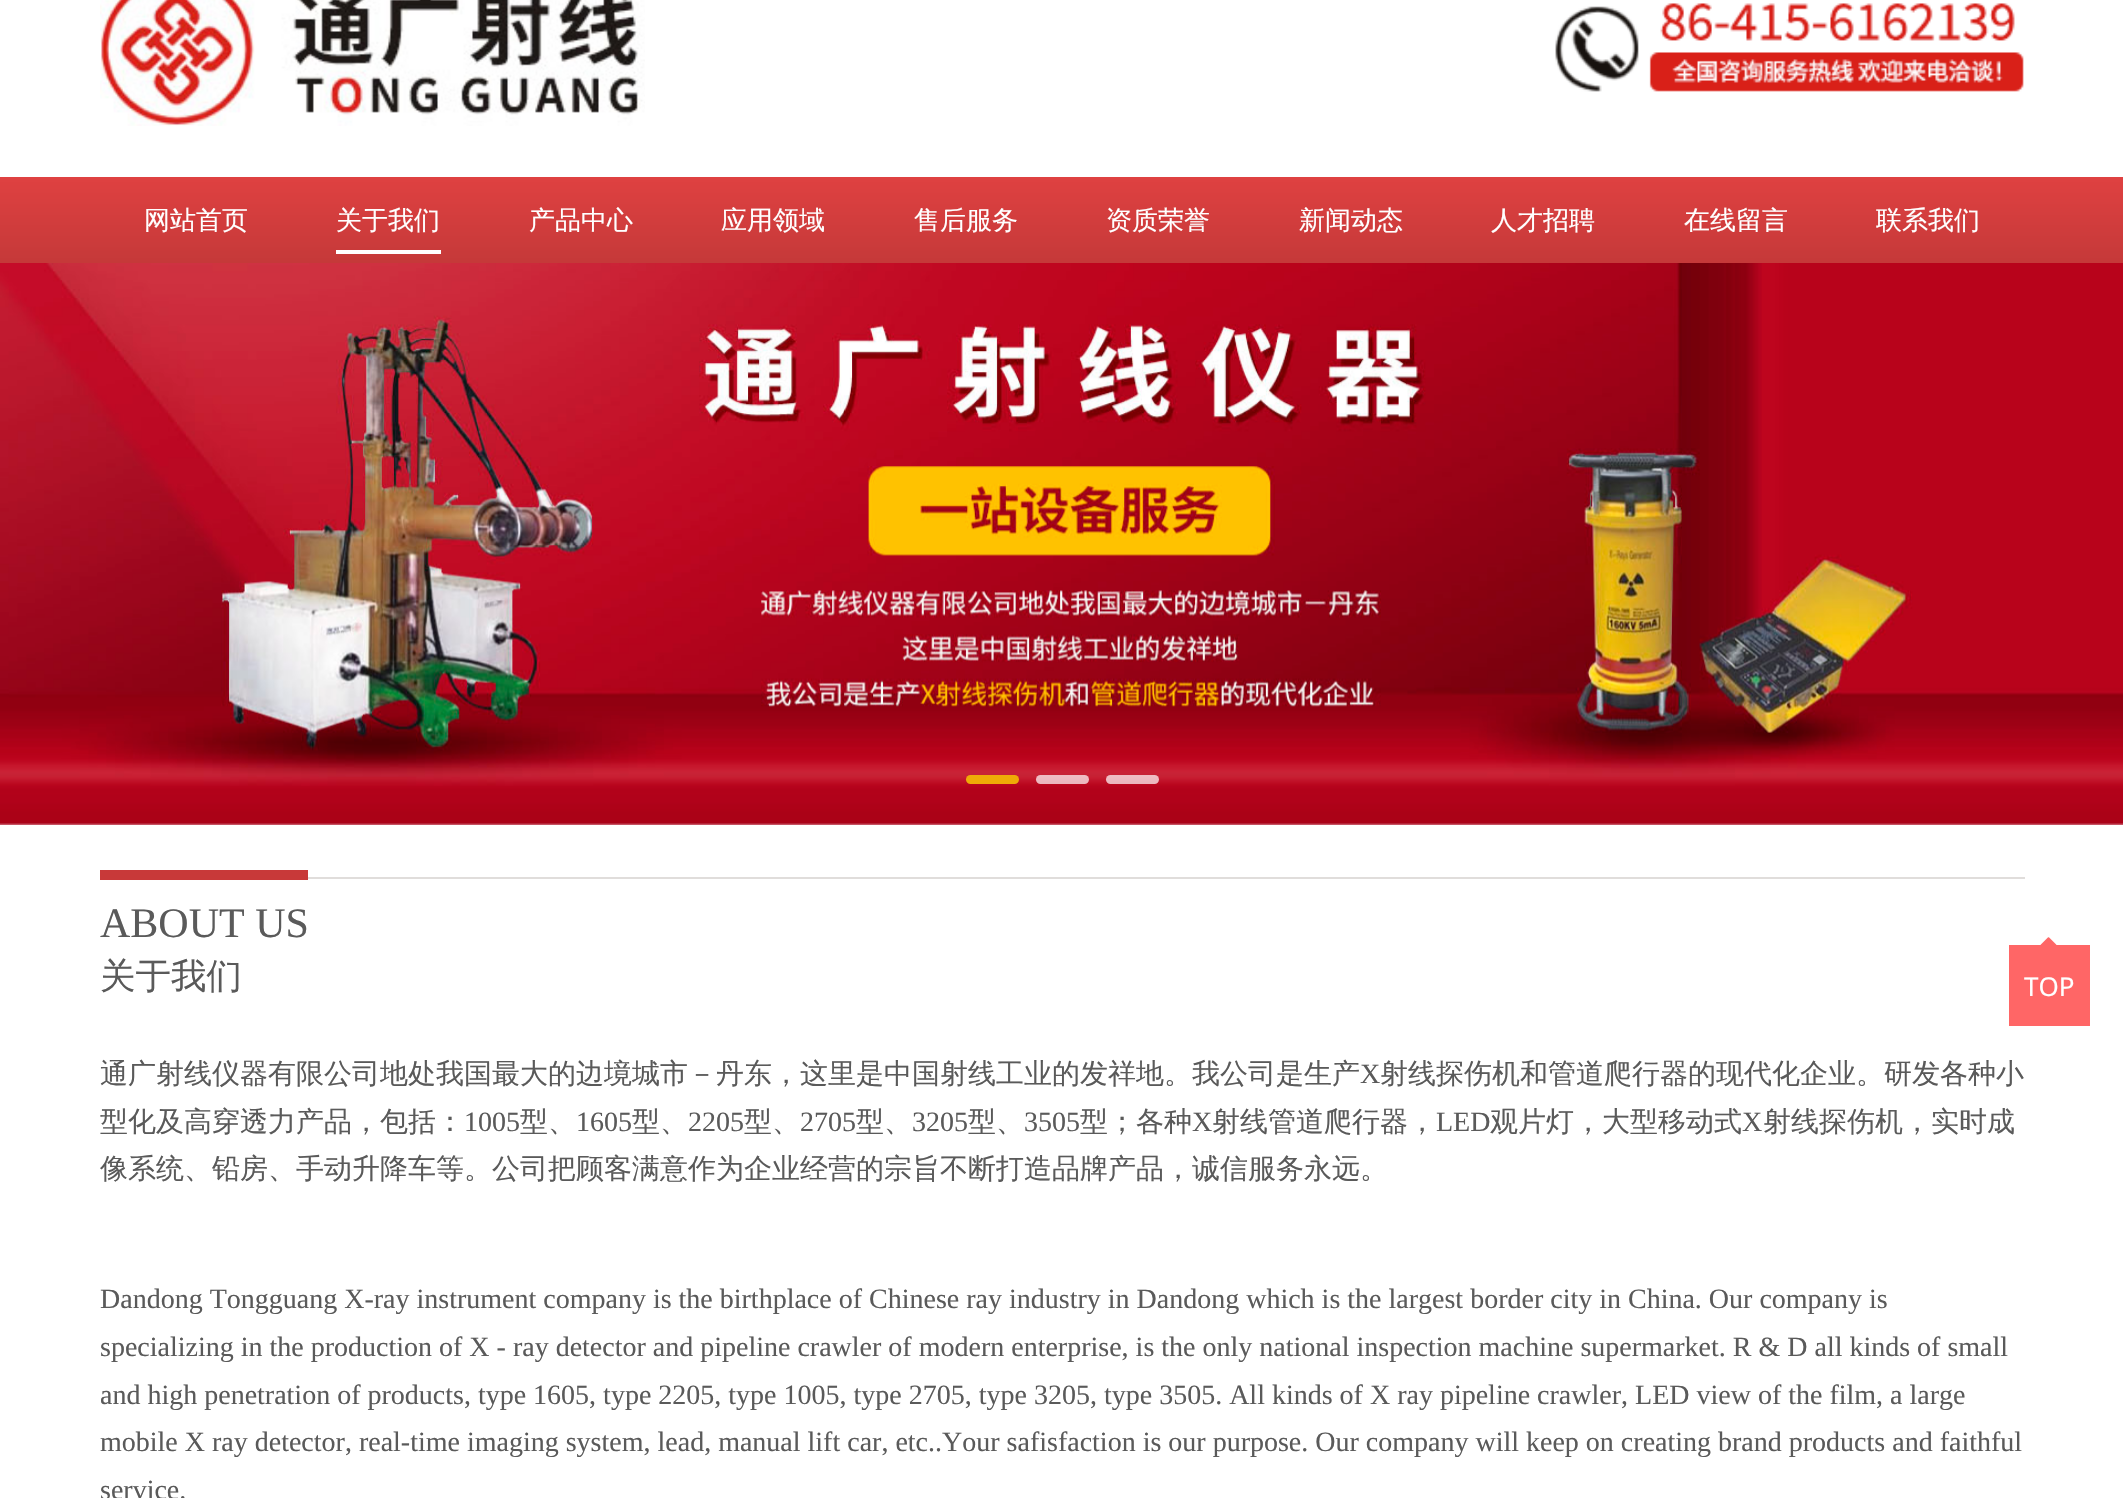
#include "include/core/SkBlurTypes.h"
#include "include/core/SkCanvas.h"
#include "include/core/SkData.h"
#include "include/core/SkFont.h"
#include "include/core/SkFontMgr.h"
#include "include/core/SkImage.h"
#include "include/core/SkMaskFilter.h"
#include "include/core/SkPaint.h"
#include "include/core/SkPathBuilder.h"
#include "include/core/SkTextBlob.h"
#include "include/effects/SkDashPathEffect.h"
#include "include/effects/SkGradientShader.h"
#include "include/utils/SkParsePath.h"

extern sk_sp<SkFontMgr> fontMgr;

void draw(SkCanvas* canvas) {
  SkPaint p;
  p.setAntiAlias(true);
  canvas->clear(SK_ColorWHITE);
  canvas->drawImageRect(SkImages::DeferredFromEncodedData(SkData::MakeFromFileName("images/1.png")), SkRect::MakeLTRB(100, 0, 645, 126), SkSamplingOptions());
  canvas->drawImageRect(SkImages::DeferredFromEncodedData(SkData::MakeFromFileName("images/2.png")), SkRect::MakeLTRB(1555, 3, 2024, 92), SkSamplingOptions());
  {
    const SkColor colors[] = {SkColorSetRGB(197, 57, 57), SkColorSetRGB(223, 65, 65)};
    const float stops[] = {0, 1};
    const SkPoint ends[] = {{1062, 263}, {1062, 177}};
    p.setShader(SkGradientShader::MakeLinear(ends, colors, stops, 2, SkTileMode::kClamp));
    p.setAlpha(255);
  }
  canvas->drawRect(SkRect::MakeLTRB(0, 177, 2123, 263), p);
  p.setShader(nullptr);
  p.setColor(SK_ColorWHITE);
  canvas->drawRect(SkRect::MakeLTRB(336, 250, 441, 254), p);
  canvas->drawImageRect(SkImages::DeferredFromEncodedData(SkData::MakeFromFileName("images/3.png")), SkRect::MakeLTRB(0, 263, 2123, 825), SkSamplingOptions());
  p.setColor(SkColorSetRGB(239, 170, 7));
  canvas->drawRoundRect(SkRect::MakeLTRB(966, 775, 1019, 784), 4.5f, 4.5f, p);
  p.setColor(SkColorSetARGB(179, 255, 255, 255));
  canvas->drawRoundRect(SkRect::MakeLTRB(1036, 775, 1089, 784), 4.5f, 4.5f, p);
  canvas->drawRoundRect(SkRect::MakeLTRB(1106, 775, 1159, 784), 4.5f, 4.5f, p);
  p.setColor(SkColorSetRGB(224, 221, 219));
  canvas->drawRect(SkRect::MakeLTRB(308, 877, 2025, 879), p);
  p.setColor(SkColorSetRGB(200, 57, 57));
  canvas->drawRect(SkRect::MakeLTRB(100, 870, 308, 880), p);
  p.setColor(SkColorSetRGB(255, 102, 102));
  canvas->drawRect(SkRect::MakeLTRB(2009, 945, 2090, 1026), p);
  canvas->drawImageRect(SkImages::DeferredFromEncodedData(SkData::MakeFromFileName("images/4.png")), SkRect::MakeLTRB(2040, 937, 2057, 945), SkSamplingOptions());
  SkFont font1(fontMgr->matchFamilyStyle("WenQuanYi Zen Hei", SkFontStyle(500, SkFontStyle::kNormal_Width, SkFontStyle::kUpright_Slant)), 26);
  font1.setSubpixel(true);
  p.setColor(SK_ColorWHITE);
  canvas->drawString("网站首页", 144, 229, font1, p);
  canvas->drawString("关于我们", 336, 229, font1, p);
  canvas->drawString("产品中心", 529, 229, font1, p);
  canvas->drawString("应用领域", 721, 229, font1, p);
  canvas->drawString("售后服务", 914, 229, font1, p);
  canvas->drawString("资质荣誉", 1106, 229, font1, p);
  canvas->drawString("新闻动态", 1299, 229, font1, p);
  canvas->drawString("人才招聘", 1491, 229, font1, p);
  canvas->drawString("在线留言", 1684, 229, font1, p);
  canvas->drawString("联系我们", 1876, 229, font1, p);
  SkFont font2(fontMgr->matchFamilyStyle("Liberation Serif", SkFontStyle::Normal()), 42);
  font2.setSubpixel(true);
  p.setColor(SkColorSetRGB(90, 90, 90));
  canvas->drawString("ABOUT US", 100, 937, font2, p);
  SkFont font3(fontMgr->matchFamilyStyle("WenQuanYi Zen Hei", SkFontStyle(500, SkFontStyle::kNormal_Width, SkFontStyle::kUpright_Slant)), 35.5f);
  font3.setSubpixel(true);
  canvas->drawString("关于我们", 100, 988, font3, p);
  SkFont font4(fontMgr->matchFamilyStyle("WenQuanYi Zen Hei", SkFontStyle(500, SkFontStyle::kNormal_Width, SkFontStyle::kUpright_Slant)), 28);
  font4.setSubpixel(true);
  canvas->drawString("通广射线仪器有限公司地处我国最大的边境城市－丹东，这里是中国射线工业的发祥地。我公司是生产", 100, 1083, font4, p);
  SkFont font5(fontMgr->matchFamilyStyle("Liberation Serif", SkFontStyle::Normal()), 28);
  font5.setSubpixel(true);
  canvas->drawString("X", 1360, 1083, font5, p);
  canvas->drawString("射线探伤机和管道爬行器的现代化企业。研发各种小", 1380, 1083, font4, p);
  canvas->drawString("型化及高穿透力产品，包括：", 100, 1131, font4, p);
  canvas->drawString("1005", 464, 1131, font5, p);
  canvas->drawString("型、", 520, 1131, font4, p);
  canvas->drawString("1605", 576, 1131, font5, p);
  canvas->drawString("型、", 632, 1131, font4, p);
  canvas->drawString("2205", 688, 1131, font5, p);
  canvas->drawString("型、", 744, 1131, font4, p);
  canvas->drawString("2705", 800, 1131, font5, p);
  canvas->drawString("型、", 856, 1131, font4, p);
  canvas->drawString("3205", 912, 1131, font5, p);
  canvas->drawString("型、", 968, 1131, font4, p);
  canvas->drawString("3505", 1024, 1131, font5, p);
  canvas->drawString("型；各种", 1080, 1131, font4, p);
  canvas->drawString("X", 1192, 1131, font5, p);
  canvas->drawString("射线管道爬行器，", 1212, 1131, font4, p);
  canvas->drawString("LED", 1436, 1131, font5, p);
  canvas->drawString("观片灯，大型移动式", 1490, 1131, font4, p);
  canvas->drawString("X", 1742, 1131, font5, p);
  canvas->drawString("射线探伤机，实时成", 1763, 1131, font4, p);
  canvas->drawString("像系统、铅房、手动升降车等。公司把顾客满意作为企业经营的宗旨不断打造品牌产品，诚信服务永远。", 100, 1178, font4, p);
  canvas->drawString("Dandong Tongguang X-ray instrument company is the birthplace of Chinese ray industry in Dandong which is the largest border city in China. Our company is", 100, 1308, font5, p);
  canvas->drawString("specializing in the production of X - ray detector and pipeline crawler of modern enterprise, is the only national inspection machine supermarket. R & D all kinds of small", 100, 1356, font5, p);
  canvas->drawString("and high penetration of products, type 1605, type 2205, type 1005, type 2705, type 3205, type 3505. All kinds of X ray pipeline crawler, LED view of the film, a large", 100, 1404, font5, p);
  canvas->drawString("mobile X ray detector, real-time imaging system, lead, manual lift car, etc..Your safisfaction is our purpose. Our company will keep on creating brand products and faithful", 100, 1451, font5, p);
  canvas->drawString("service.", 100, 1499, font5, p);
  SkFont font6(fontMgr->matchFamilyStyle("Noto Sans", SkFontStyle::Normal()), 26);
  font6.setSubpixel(true);
  p.setColor(SK_ColorWHITE);
  canvas->drawString("TOP", 2024, 996, font6, p);
}
